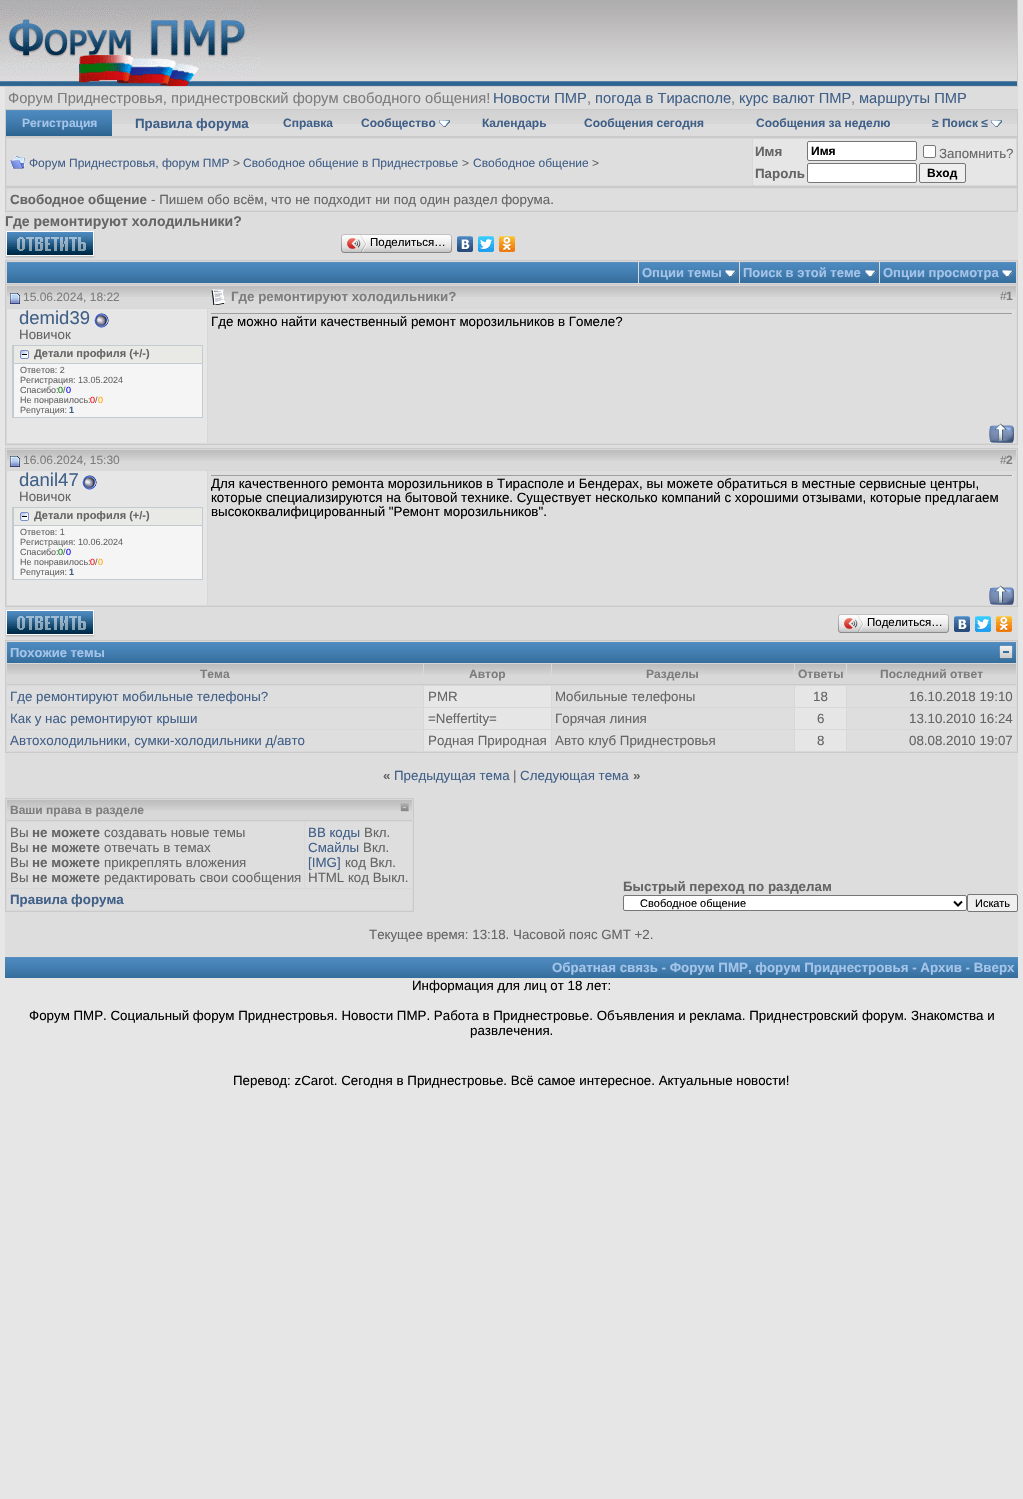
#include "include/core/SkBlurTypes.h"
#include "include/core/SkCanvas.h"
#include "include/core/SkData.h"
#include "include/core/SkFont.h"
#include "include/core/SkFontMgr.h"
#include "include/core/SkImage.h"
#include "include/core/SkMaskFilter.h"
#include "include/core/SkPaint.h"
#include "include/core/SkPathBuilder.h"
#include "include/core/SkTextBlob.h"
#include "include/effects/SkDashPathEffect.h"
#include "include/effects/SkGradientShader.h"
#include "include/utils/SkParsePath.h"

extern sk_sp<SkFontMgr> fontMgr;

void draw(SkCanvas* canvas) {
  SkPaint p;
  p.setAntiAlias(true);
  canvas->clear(SkColorSetRGB(230, 230, 230));
  p.setColor(SkColorSetRGB(221, 221, 221));
  canvas->drawRect(SkRect::MakeLTRB(5, 87, 1018, 260), p);
  canvas->drawImageRect(SkImages::DeferredFromEncodedData(SkData::MakeFromFileName("images/1.png")), SkRect::MakeLTRB(259, 0, 1017, 86), SkSamplingOptions());
  p.setStyle(SkPaint::kStroke_Style);
  p.setStrokeWidth(1);
  p.setColor(SkColorSetRGB(203, 201, 201));
  canvas->drawRect(SkRect::MakeLTRB(-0.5f, -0.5f, 1017.5f, 86.5f), p);
  canvas->drawImageRect(SkImages::DeferredFromEncodedData(SkData::MakeFromFileName("images/2.png")), SkRect::MakeLTRB(0, 0, 259, 86), SkSamplingOptions());
  canvas->drawImageRect(SkImages::DeferredFromEncodedData(SkData::MakeFromFileName("images/3.png")), SkRect::MakeLTRB(112, 110, 1017, 124), SkSamplingOptions());
  canvas->drawRect(SkRect::MakeLTRB(5.5f, 109.5f, 1017.5f, 136.5f), p);
  canvas->drawImageRect(SkImages::DeferredFromEncodedData(SkData::MakeFromFileName("images/4.png")), SkRect::MakeLTRB(6, 110, 112, 136), SkSamplingOptions());
  canvas->drawImageRect(SkImages::DeferredFromEncodedData(SkData::MakeFromFileName("images/5.png")), SkRect::MakeLTRB(439, 120, 450, 127), SkSamplingOptions());
  canvas->drawImageRect(SkImages::DeferredFromEncodedData(SkData::MakeFromFileName("images/5.png")), SkRect::MakeLTRB(991, 120, 1002, 127), SkSamplingOptions());
  p.setStyle(SkPaint::kFill_Style);
  p.setColor(SkColorSetRGB(216, 216, 216));
  canvas->drawRect(SkRect::MakeLTRB(5.5f, 137.5f, 1017.5f, 186.5f), p);
  p.setStyle(SkPaint::kStroke_Style);
  p.setColor(SkColorSetRGB(203, 201, 201));
  canvas->drawRect(SkRect::MakeLTRB(5.5f, 137.5f, 1017.5f, 186.5f), p);
  p.setStyle(SkPaint::kFill_Style);
  p.setColor(SkColorSetRGB(223, 222, 222));
  canvas->drawRect(SkRect::MakeLTRB(7, 139, 752, 185), p);
  canvas->drawImageRect(SkImages::DeferredFromEncodedData(SkData::MakeFromFileName("images/6.png")), SkRect::MakeLTRB(10, 156, 25, 169), SkSamplingOptions());
  p.setColor(SkColorSetRGB(230, 230, 230));
  canvas->drawRect(SkRect::MakeLTRB(753, 139, 1016, 185), p);
  p.setColor(SK_ColorWHITE);
  canvas->drawRoundRect(SkRect::MakeLTRB(807.5f, 141.5f, 916.5f, 160.5f), 1.5f, 1.5f, p);
  p.setStyle(SkPaint::kStroke_Style);
  p.setColor(SkColorSetRGB(118, 118, 118));
  canvas->drawRoundRect(SkRect::MakeLTRB(807.5f, 141.5f, 916.5f, 160.5f), 1.5f, 1.5f, p);
  p.setStyle(SkPaint::kFill_Style);
  p.setColor(SK_ColorWHITE);
  canvas->drawRoundRect(SkRect::MakeLTRB(923.5f, 145.5f, 935.5f, 157.5f), 1.5f, 1.5f, p);
  p.setStyle(SkPaint::kStroke_Style);
  p.setColor(SkColorSetRGB(118, 118, 118));
  canvas->drawRoundRect(SkRect::MakeLTRB(923.5f, 145.5f, 935.5f, 157.5f), 1.5f, 1.5f, p);
  p.setStyle(SkPaint::kFill_Style);
  p.setColor(SK_ColorWHITE);
  canvas->drawRoundRect(SkRect::MakeLTRB(807.5f, 163.5f, 916.5f, 182.5f), 1.5f, 1.5f, p);
  p.setStyle(SkPaint::kStroke_Style);
  p.setColor(SkColorSetRGB(118, 118, 118));
  canvas->drawRoundRect(SkRect::MakeLTRB(807.5f, 163.5f, 916.5f, 182.5f), 1.5f, 1.5f, p);
  p.setStyle(SkPaint::kFill_Style);
  p.setColor(SkColorSetRGB(239, 239, 239));
  canvas->drawRoundRect(SkRect::MakeLTRB(919.5f, 163.5f, 965.5f, 182.5f), 1.5f, 1.5f, p);
  p.setStyle(SkPaint::kStroke_Style);
  p.setColor(SkColorSetRGB(118, 118, 118));
  canvas->drawRoundRect(SkRect::MakeLTRB(919.5f, 163.5f, 965.5f, 182.5f), 1.5f, 1.5f, p);
  p.setStyle(SkPaint::kFill_Style);
  p.setColor(SkColorSetRGB(216, 216, 216));
  canvas->drawRect(SkRect::MakeLTRB(5.5f, 187.5f, 1017.5f, 211.5f), p);
  p.setStyle(SkPaint::kStroke_Style);
  p.setColor(SkColorSetRGB(203, 201, 201));
  canvas->drawRect(SkRect::MakeLTRB(5.5f, 187.5f, 1017.5f, 211.5f), p);
  p.setStyle(SkPaint::kFill_Style);
  p.setColor(SkColorSetRGB(223, 222, 222));
  canvas->drawRect(SkRect::MakeLTRB(7, 189, 1016, 210), p);
  canvas->drawImageRect(SkImages::DeferredFromEncodedData(SkData::MakeFromFileName("images/7.png")), SkRect::MakeLTRB(5, 231, 95, 258), SkSamplingOptions());
  canvas->drawImageRect(SkImages::DeferredFromEncodedData(SkData::MakeFromFileName("images/8.png")), SkRect::MakeLTRB(344, 234, 449, 253), SkSamplingOptions());
  canvas->drawImageRect(SkImages::DeferredFromEncodedData(SkData::MakeFromFileName("images/9.png")), SkRect::MakeLTRB(341, 234, 344, 253), SkSamplingOptions());
  canvas->drawImageRect(SkImages::DeferredFromEncodedData(SkData::MakeFromFileName("images/10.png")), SkRect::MakeLTRB(347, 235, 367, 252), SkSamplingOptions());
  canvas->drawImageRect(SkImages::DeferredFromEncodedData(SkData::MakeFromFileName("images/11.png")), SkRect::MakeLTRB(449, 234, 452, 253), SkSamplingOptions());
  canvas->drawImageRect(SkImages::DeferredFromEncodedData(SkData::MakeFromFileName("images/12.png")), SkRect::MakeLTRB(457, 236, 473, 252), SkSamplingOptions());
  canvas->drawImageRect(SkImages::DeferredFromEncodedData(SkData::MakeFromFileName("images/13.png")), SkRect::MakeLTRB(478, 236, 494, 252), SkSamplingOptions());
  canvas->drawImageRect(SkImages::DeferredFromEncodedData(SkData::MakeFromFileName("images/14.png")), SkRect::MakeLTRB(499, 236, 515, 252), SkSamplingOptions());
  p.setColor(SkColorSetRGB(216, 216, 216));
  canvas->drawRect(SkRect::MakeLTRB(6, 261, 1017, 284), p);
  p.setColor(SkColorSetRGB(203, 201, 201));
  canvas->drawRect(SkRect::MakeLTRB(5, 260, 1018, 261), p);
  canvas->drawRect(SkRect::MakeLTRB(1017, 260, 1018, 284), p);
  canvas->drawRect(SkRect::MakeLTRB(5, 260, 6, 284), p);
  canvas->drawImageRect(SkImages::DeferredFromEncodedData(SkData::MakeFromFileName("images/15.png")), SkRect::MakeLTRB(7, 262, 638, 283), SkSamplingOptions());
  canvas->drawImageRect(SkImages::DeferredFromEncodedData(SkData::MakeFromFileName("images/16.png")), SkRect::MakeLTRB(639, 262, 739, 283), SkSamplingOptions());
  canvas->drawImageRect(SkImages::DeferredFromEncodedData(SkData::MakeFromFileName("images/17.png")), SkRect::MakeLTRB(725, 270, 736, 277), SkSamplingOptions());
  canvas->drawImageRect(SkImages::DeferredFromEncodedData(SkData::MakeFromFileName("images/18.png")), SkRect::MakeLTRB(740, 262, 879, 283), SkSamplingOptions());
  canvas->drawImageRect(SkImages::DeferredFromEncodedData(SkData::MakeFromFileName("images/17.png")), SkRect::MakeLTRB(865, 270, 876, 277), SkSamplingOptions());
  canvas->drawImageRect(SkImages::DeferredFromEncodedData(SkData::MakeFromFileName("images/19.png")), SkRect::MakeLTRB(880, 262, 1016, 283), SkSamplingOptions());
  canvas->drawImageRect(SkImages::DeferredFromEncodedData(SkData::MakeFromFileName("images/17.png")), SkRect::MakeLTRB(1002, 270, 1013, 277), SkSamplingOptions());
  p.setColor(SkColorSetRGB(221, 221, 221));
  canvas->drawRect(SkRect::MakeLTRB(5, 445, 1018, 448), p);
  p.setStyle(SkPaint::kStroke_Style);
  p.setColor(SkColorSetRGB(203, 201, 201));
  canvas->drawRect(SkRect::MakeLTRB(5.5f, 284.5f, 1017.5f, 444.5f), p);
  p.setStyle(SkPaint::kFill_Style);
  p.setColor(SkColorSetRGB(218, 218, 218));
  canvas->drawRect(SkRect::MakeLTRB(7, 297, 1016, 308), p);
  canvas->drawImageRect(SkImages::DeferredFromEncodedData(SkData::MakeFromFileName("images/20.png")), SkRect::MakeLTRB(7, 286, 208, 297), SkSamplingOptions());
  p.setColor(SkColorSetRGB(216, 216, 216));
  canvas->drawRect(SkRect::MakeLTRB(6, 285, 1017, 286), p);
  canvas->drawRect(SkRect::MakeLTRB(6, 308, 208, 309), p);
  canvas->drawRect(SkRect::MakeLTRB(6, 285, 7, 421), p);
  canvas->drawImageRect(SkImages::DeferredFromEncodedData(SkData::MakeFromFileName("images/21.png")), SkRect::MakeLTRB(10, 293, 20, 304), SkSamplingOptions());
  canvas->drawImageRect(SkImages::DeferredFromEncodedData(SkData::MakeFromFileName("images/22.png")), SkRect::MakeLTRB(208, 286, 1016, 297), SkSamplingOptions());
  canvas->drawRect(SkRect::MakeLTRB(1016, 285, 1017, 444), p);
  canvas->drawRect(SkRect::MakeLTRB(208, 308, 1017, 309), p);
  canvas->drawImageRect(SkImages::DeferredFromEncodedData(SkData::MakeFromFileName("images/23.png")), SkRect::MakeLTRB(211, 289, 226, 305), SkSamplingOptions());
  canvas->drawRect(SkRect::MakeLTRB(207, 309, 208, 444), p);
  canvas->drawImageRect(SkImages::DeferredFromEncodedData(SkData::MakeFromFileName("images/24.png")), SkRect::MakeLTRB(94, 313, 109, 328), SkSamplingOptions());
  p.setColor(SkColorSetRGB(233, 233, 230));
  canvas->drawRect(SkRect::MakeLTRB(14, 346, 202, 363), p);
  p.setColor(SkColorSetRGB(195, 203, 209));
  canvas->drawRect(SkRect::MakeLTRB(12, 345, 203, 346), p);
  canvas->drawRect(SkRect::MakeLTRB(202, 345, 203, 418), p);
  canvas->drawRect(SkRect::MakeLTRB(12, 417, 203, 418), p);
  canvas->drawRect(SkRect::MakeLTRB(12, 345, 14, 418), p);
  canvas->drawImageRect(SkImages::DeferredFromEncodedData(SkData::MakeFromFileName("images/25.png")), SkRect::MakeLTRB(20, 350, 29, 359), SkSamplingOptions());
  p.setColor(SkColorSetRGB(245, 245, 245));
  canvas->drawRect(SkRect::MakeLTRB(14, 364, 202, 417), p);
  p.setColor(SkColorSetRGB(195, 203, 209));
  canvas->drawRect(SkRect::MakeLTRB(14, 363, 202, 364), p);
  p.setColor(SkColorSetRGB(223, 222, 222));
  canvas->drawRect(SkRect::MakeLTRB(208, 309, 1016, 443), p);
  p.setColor(SkColorSetRGB(159, 159, 159));
  canvas->drawRect(SkRect::MakeLTRB(211, 313, 1013, 314), p);
  p.setColor(SkColorSetRGB(238, 238, 238));
  canvas->drawRect(SkRect::MakeLTRB(1012, 313, 1013, 314), p);
  p.setColor(SkColorSetRGB(216, 216, 216));
  canvas->drawRect(SkRect::MakeLTRB(6, 443, 1017, 444), p);
  canvas->drawRect(SkRect::MakeLTRB(6, 421, 7, 444), p);
  canvas->drawImageRect(SkImages::DeferredFromEncodedData(SkData::MakeFromFileName("images/26.png")), SkRect::MakeLTRB(989, 423, 1014, 443), SkSamplingOptions());
  p.setColor(SkColorSetRGB(221, 221, 221));
  canvas->drawRect(SkRect::MakeLTRB(5, 607, 1018, 957), p);
  p.setStyle(SkPaint::kStroke_Style);
  p.setColor(SkColorSetRGB(203, 201, 201));
  canvas->drawRect(SkRect::MakeLTRB(5.5f, 448.5f, 1017.5f, 606.5f), p);
  p.setStyle(SkPaint::kFill_Style);
  p.setColor(SkColorSetRGB(218, 218, 218));
  canvas->drawRect(SkRect::MakeLTRB(7, 461, 1016, 470), p);
  canvas->drawImageRect(SkImages::DeferredFromEncodedData(SkData::MakeFromFileName("images/20.png")), SkRect::MakeLTRB(7, 450, 208, 461), SkSamplingOptions());
  p.setColor(SkColorSetRGB(216, 216, 216));
  canvas->drawRect(SkRect::MakeLTRB(6, 449, 1017, 450), p);
  canvas->drawRect(SkRect::MakeLTRB(6, 470, 208, 471), p);
  canvas->drawRect(SkRect::MakeLTRB(6, 449, 7, 583), p);
  canvas->drawImageRect(SkImages::DeferredFromEncodedData(SkData::MakeFromFileName("images/27.png")), SkRect::MakeLTRB(10, 456, 20, 467), SkSamplingOptions());
  canvas->drawImageRect(SkImages::DeferredFromEncodedData(SkData::MakeFromFileName("images/22.png")), SkRect::MakeLTRB(208, 450, 1016, 461), SkSamplingOptions());
  canvas->drawRect(SkRect::MakeLTRB(1016, 449, 1017, 606), p);
  canvas->drawRect(SkRect::MakeLTRB(208, 470, 1017, 471), p);
  canvas->drawRect(SkRect::MakeLTRB(207, 471, 208, 606), p);
  canvas->drawImageRect(SkImages::DeferredFromEncodedData(SkData::MakeFromFileName("images/24.png")), SkRect::MakeLTRB(82, 475, 97, 490), SkSamplingOptions());
  p.setColor(SkColorSetRGB(233, 233, 230));
  canvas->drawRect(SkRect::MakeLTRB(14, 508, 202, 525), p);
  p.setColor(SkColorSetRGB(195, 203, 209));
  canvas->drawRect(SkRect::MakeLTRB(12, 507, 203, 508), p);
  canvas->drawRect(SkRect::MakeLTRB(202, 507, 203, 580), p);
  canvas->drawRect(SkRect::MakeLTRB(12, 579, 203, 580), p);
  canvas->drawRect(SkRect::MakeLTRB(12, 507, 14, 580), p);
  canvas->drawImageRect(SkImages::DeferredFromEncodedData(SkData::MakeFromFileName("images/25.png")), SkRect::MakeLTRB(20, 512, 29, 521), SkSamplingOptions());
  p.setColor(SkColorSetRGB(245, 245, 245));
  canvas->drawRect(SkRect::MakeLTRB(14, 526, 202, 579), p);
  p.setColor(SkColorSetRGB(195, 203, 209));
  canvas->drawRect(SkRect::MakeLTRB(14, 525, 202, 526), p);
  p.setColor(SkColorSetRGB(223, 222, 222));
  canvas->drawRect(SkRect::MakeLTRB(208, 471, 1016, 605), p);
  p.setColor(SkColorSetRGB(159, 159, 159));
  canvas->drawRect(SkRect::MakeLTRB(211, 475, 1013, 476), p);
  p.setColor(SkColorSetRGB(238, 238, 238));
  canvas->drawRect(SkRect::MakeLTRB(1012, 475, 1013, 476), p);
  p.setColor(SkColorSetRGB(216, 216, 216));
  canvas->drawRect(SkRect::MakeLTRB(6, 605, 1017, 606), p);
  canvas->drawRect(SkRect::MakeLTRB(6, 583, 7, 606), p);
  canvas->drawImageRect(SkImages::DeferredFromEncodedData(SkData::MakeFromFileName("images/26.png")), SkRect::MakeLTRB(989, 585, 1014, 605), SkSamplingOptions());
  canvas->drawImageRect(SkImages::DeferredFromEncodedData(SkData::MakeFromFileName("images/7.png")), SkRect::MakeLTRB(5, 610, 95, 637), SkSamplingOptions());
  canvas->drawImageRect(SkImages::DeferredFromEncodedData(SkData::MakeFromFileName("images/8.png")), SkRect::MakeLTRB(841, 614, 946, 633), SkSamplingOptions());
  canvas->drawImageRect(SkImages::DeferredFromEncodedData(SkData::MakeFromFileName("images/9.png")), SkRect::MakeLTRB(838, 614, 841, 633), SkSamplingOptions());
  canvas->drawImageRect(SkImages::DeferredFromEncodedData(SkData::MakeFromFileName("images/10.png")), SkRect::MakeLTRB(844, 615, 864, 632), SkSamplingOptions());
  canvas->drawImageRect(SkImages::DeferredFromEncodedData(SkData::MakeFromFileName("images/11.png")), SkRect::MakeLTRB(946, 614, 949, 633), SkSamplingOptions());
  canvas->drawImageRect(SkImages::DeferredFromEncodedData(SkData::MakeFromFileName("images/12.png")), SkRect::MakeLTRB(954, 616, 970, 632), SkSamplingOptions());
  canvas->drawImageRect(SkImages::DeferredFromEncodedData(SkData::MakeFromFileName("images/13.png")), SkRect::MakeLTRB(975, 616, 991, 632), SkSamplingOptions());
  canvas->drawImageRect(SkImages::DeferredFromEncodedData(SkData::MakeFromFileName("images/14.png")), SkRect::MakeLTRB(996, 616, 1012, 632), SkSamplingOptions());
  canvas->drawRect(SkRect::MakeLTRB(5.5f, 640.5f, 1017.5f, 752.5f), p);
  p.setStyle(SkPaint::kStroke_Style);
  p.setColor(SkColorSetRGB(203, 201, 201));
  canvas->drawRect(SkRect::MakeLTRB(5.5f, 640.5f, 1017.5f, 752.5f), p);
  canvas->drawImageRect(SkImages::DeferredFromEncodedData(SkData::MakeFromFileName("images/28.png")), SkRect::MakeLTRB(7, 642, 1016, 663), SkSamplingOptions());
  canvas->drawImageRect(SkImages::DeferredFromEncodedData(SkData::MakeFromFileName("images/29.png")), SkRect::MakeLTRB(999, 645, 1013, 659), SkSamplingOptions());
  p.setStyle(SkPaint::kFill_Style);
  canvas->drawRect(SkRect::MakeLTRB(7, 684, 1016, 685), p);
  canvas->drawImageRect(SkImages::DeferredFromEncodedData(SkData::MakeFromFileName("images/30.png")), SkRect::MakeLTRB(7, 664, 423, 675), SkSamplingOptions());
  canvas->drawImageRect(SkImages::DeferredFromEncodedData(SkData::MakeFromFileName("images/31.png")), SkRect::MakeLTRB(424, 664, 551, 675), SkSamplingOptions());
  canvas->drawImageRect(SkImages::DeferredFromEncodedData(SkData::MakeFromFileName("images/32.png")), SkRect::MakeLTRB(552, 664, 794, 675), SkSamplingOptions());
  canvas->drawImageRect(SkImages::DeferredFromEncodedData(SkData::MakeFromFileName("images/33.png")), SkRect::MakeLTRB(795, 664, 846, 675), SkSamplingOptions());
  canvas->drawImageRect(SkImages::DeferredFromEncodedData(SkData::MakeFromFileName("images/34.png")), SkRect::MakeLTRB(847, 664, 1016, 675), SkSamplingOptions());
  p.setColor(SkColorSetRGB(223, 222, 222));
  canvas->drawRect(SkRect::MakeLTRB(7, 686, 423, 707), p);
  p.setColor(SkColorSetRGB(230, 230, 230));
  canvas->drawRect(SkRect::MakeLTRB(424, 686, 551, 707), p);
  p.setColor(SkColorSetRGB(223, 222, 222));
  canvas->drawRect(SkRect::MakeLTRB(552, 686, 794, 707), p);
  p.setColor(SkColorSetRGB(230, 230, 230));
  canvas->drawRect(SkRect::MakeLTRB(795, 686, 846, 707), p);
  p.setColor(SkColorSetRGB(223, 222, 222));
  canvas->drawRect(SkRect::MakeLTRB(847, 686, 1016, 707), p);
  canvas->drawRect(SkRect::MakeLTRB(7, 708, 423, 729), p);
  p.setColor(SkColorSetRGB(230, 230, 230));
  canvas->drawRect(SkRect::MakeLTRB(424, 708, 551, 729), p);
  p.setColor(SkColorSetRGB(223, 222, 222));
  canvas->drawRect(SkRect::MakeLTRB(552, 708, 794, 729), p);
  p.setColor(SkColorSetRGB(230, 230, 230));
  canvas->drawRect(SkRect::MakeLTRB(795, 708, 846, 729), p);
  p.setColor(SkColorSetRGB(223, 222, 222));
  canvas->drawRect(SkRect::MakeLTRB(847, 708, 1016, 729), p);
  canvas->drawRect(SkRect::MakeLTRB(7, 730, 423, 751), p);
  p.setColor(SkColorSetRGB(230, 230, 230));
  canvas->drawRect(SkRect::MakeLTRB(424, 730, 551, 751), p);
  p.setColor(SkColorSetRGB(223, 222, 222));
  canvas->drawRect(SkRect::MakeLTRB(552, 730, 794, 751), p);
  p.setColor(SkColorSetRGB(230, 230, 230));
  canvas->drawRect(SkRect::MakeLTRB(795, 730, 846, 751), p);
  p.setColor(SkColorSetRGB(223, 222, 222));
  canvas->drawRect(SkRect::MakeLTRB(847, 730, 1016, 751), p);
  p.setColor(SkColorSetRGB(216, 216, 216));
  canvas->drawRect(SkRect::MakeLTRB(5.5f, 798.5f, 413.5f, 911.5f), p);
  p.setStyle(SkPaint::kStroke_Style);
  p.setColor(SkColorSetRGB(203, 201, 201));
  canvas->drawRect(SkRect::MakeLTRB(5.5f, 798.5f, 413.5f, 911.5f), p);
  canvas->drawImageRect(SkImages::DeferredFromEncodedData(SkData::MakeFromFileName("images/35.png")), SkRect::MakeLTRB(7, 800, 412, 811), SkSamplingOptions());
  p.setStyle(SkPaint::kFill_Style);
  canvas->drawRect(SkRect::MakeLTRB(7, 820, 412, 821), p);
  canvas->drawImageRect(SkImages::DeferredFromEncodedData(SkData::MakeFromFileName("images/36.png")), SkRect::MakeLTRB(400, 803, 409, 812), SkSamplingOptions());
  p.setColor(SkColorSetRGB(223, 222, 222));
  canvas->drawRect(SkRect::MakeLTRB(7, 822, 304, 888), p);
  canvas->drawRect(SkRect::MakeLTRB(305, 822, 412, 888), p);
  canvas->drawRect(SkRect::MakeLTRB(7, 889, 412, 910), p);
  p.setColor(SK_ColorWHITE);
  canvas->drawRoundRect(SkRect::MakeLTRB(623.5f, 895.5f, 966.5f, 910.5f), 1.5f, 1.5f, p);
  p.setStyle(SkPaint::kStroke_Style);
  p.setColor(SkColorSetRGB(118, 118, 118));
  canvas->drawRoundRect(SkRect::MakeLTRB(623.5f, 895.5f, 966.5f, 910.5f), 1.5f, 1.5f, p);
  p.setStrokeWidth(2);
  p.setColor(SK_ColorBLACK);
  canvas->drawPath(SkPathBuilder().moveTo(954, 901.5f).lineTo(958, 905.5f).lineTo(962, 901.5f).detach(), p);
  p.setStyle(SkPaint::kFill_Style);
  p.setColor(SkColorSetRGB(239, 239, 239));
  canvas->drawRoundRect(SkRect::MakeLTRB(967.5f, 894.5f, 1017.5f, 911.5f), 1.5f, 1.5f, p);
  p.setStyle(SkPaint::kStroke_Style);
  p.setStrokeWidth(1);
  p.setColor(SkColorSetRGB(118, 118, 118));
  canvas->drawRoundRect(SkRect::MakeLTRB(967.5f, 894.5f, 1017.5f, 911.5f), 1.5f, 1.5f, p);
  canvas->drawImageRect(SkImages::DeferredFromEncodedData(SkData::MakeFromFileName("images/37.png")), SkRect::MakeLTRB(5, 957, 1018, 978), SkSamplingOptions());
  SkFont font1(fontMgr->matchFamilyStyle("Liberation Sans", SkFontStyle::Normal()), 14.7f);
  font1.setSubpixel(true);
  p.setStyle(SkPaint::kFill_Style);
  p.setColor(SkColorSetRGB(125, 125, 125));
  canvas->drawString("Форум Приднестровья, приднестровский форум свободного общения!", 8, 103, font1, p);
  p.setColor(SkColorSetRGB(65, 96, 136));
  canvas->drawString("Новости ПМР", 493, 103, font1, p);
  p.setColor(SkColorSetRGB(125, 125, 125));
  canvas->drawString(",", 587, 103, font1, p);
  p.setColor(SkColorSetRGB(65, 96, 136));
  canvas->drawString("погода в Тирасполе", 595, 103, font1, p);
  p.setColor(SkColorSetRGB(125, 125, 125));
  canvas->drawString(",", 731, 103, font1, p);
  p.setColor(SkColorSetRGB(65, 96, 136));
  canvas->drawString("курс валют ПМР", 739, 103, font1, p);
  p.setColor(SkColorSetRGB(125, 125, 125));
  canvas->drawString(",", 851, 103, font1, p);
  p.setColor(SkColorSetRGB(65, 96, 136));
  canvas->drawString("маршруты ПМР", 859, 103, font1, p);
  SkFont font2(fontMgr->matchFamilyStyle("Liberation Sans", SkFontStyle::Bold()), 12);
  font2.setSubpixel(true);
  p.setColor(SkColorSetRGB(165, 196, 233));
  canvas->drawString("Регистрация", 22, 127, font2, p);
  SkFont font3(fontMgr->matchFamilyStyle("Liberation Sans", SkFontStyle::Bold()), 13.33f);
  font3.setSubpixel(true);
  p.setColor(SkColorSetRGB(65, 96, 136));
  canvas->drawString("Правила форума", 135, 128, font3, p);
  canvas->drawString("Справка", 283, 127, font2, p);
  canvas->drawString("Сообщество", 361, 127, font2, p);
  canvas->drawString("Календарь", 482, 127, font2, p);
  canvas->drawString("Сообщения сегодня", 584, 127, font2, p);
  canvas->drawString("Сообщения за неделю", 756, 127, font2, p);
  canvas->drawString("≥ Поиск ≤", 932, 127, font2, p);
  SkFont font4(fontMgr->matchFamilyStyle("Liberation Sans", SkFontStyle::Normal()), 12);
  font4.setSubpixel(true);
  canvas->drawString("Форум Приднестровья, форум ПМР", 29, 167, font4, p);
  p.setColor(SkColorSetRGB(101, 101, 101));
  canvas->drawString(">", 233, 167, font4, p);
  p.setColor(SkColorSetRGB(65, 96, 136));
  canvas->drawString("Свободное общение в Приднестровье", 243, 167, font4, p);
  p.setColor(SkColorSetRGB(101, 101, 101));
  canvas->drawString(">", 462, 167, font4, p);
  p.setColor(SkColorSetRGB(65, 96, 136));
  canvas->drawString("Свободное общение", 473, 167, font4, p);
  p.setColor(SkColorSetRGB(101, 101, 101));
  canvas->drawString(">", 592, 167, font4, p);
  canvas->drawString("Имя", 755, 156, font3, p);
  p.setColor(SK_ColorBLACK);
  canvas->drawString("Имя", 811, 155, font2, p);
  SkFont font5(fontMgr->matchFamilyStyle("Liberation Sans", SkFontStyle::Normal()), 13.33f);
  font5.setSubpixel(true);
  p.setColor(SkColorSetRGB(101, 101, 101));
  canvas->drawString("Запомнить?", 939, 158, font5, p);
  canvas->drawString("Пароль", 755, 178, font3, p);
  p.setColor(SK_ColorBLACK);
  canvas->drawString("Вход", 927, 177, font2, p);
  p.setColor(SkColorSetRGB(101, 101, 101));
  canvas->drawString("Свободное общение", 10, 204, font3, p);
  canvas->drawString("- Пишем обо всём, что не подходит ни под один раздел форума.", 151, 204, font5, p);
  SkFont font6(fontMgr->matchFamilyStyle("Liberation Sans", SkFontStyle::Bold()), 14);
  font6.setSubpixel(true);
  canvas->drawString("Где ремонтируют холодильники?", 5, 226, font6, p);
  SkFont font7(fontMgr->matchFamilyStyle("Liberation Sans", SkFontStyle::Normal()), 11.5f);
  font7.setSubpixel(true);
  p.setColor(SK_ColorBLACK);
  canvas->drawString("Поделиться…", 370, 246, font7, p);
  SkFont font8(fontMgr->matchFamilyStyle("Liberation Sans", SkFontStyle::Bold()), 13);
  font8.setSubpixel(true);
  p.setColor(SkColorSetRGB(165, 196, 233));
  canvas->drawString("Опции темы", 642, 277, font8, p);
  canvas->drawString("Поиск в этой теме", 743, 277, font8, p);
  canvas->drawString("Опции просмотра", 883, 277, font8, p);
  p.setColor(SkColorSetRGB(125, 125, 125));
  canvas->drawString("15.06.2024, 18:22", 23, 301, font4, p);
  canvas->drawString("Где ремонтируют холодильники?", 231, 301, font3, p);
  canvas->drawString("#", 1000, 300, font4, p);
  canvas->drawString("1", 1006, 300, font2, p);
  SkFont font9(fontMgr->matchFamilyStyle("Liberation Sans", SkFontStyle::Normal()), 18.5f);
  font9.setSubpixel(true);
  p.setColor(SkColorSetRGB(65, 96, 136));
  canvas->drawString("demid39", 19, 324, font9, p);
  p.setColor(SkColorSetRGB(101, 101, 101));
  canvas->drawString("Новичок", 19, 339, font5, p);
  SkFont font10(fontMgr->matchFamilyStyle("Liberation Sans", SkFontStyle::Bold()), 11);
  font10.setSubpixel(true);
  canvas->drawString("Детали профиля (+/-)", 34, 357, font10, p);
  SkFont font11(fontMgr->matchFamilyStyle("Liberation Sans", SkFontStyle::Normal()), 9);
  font11.setSubpixel(true);
  canvas->drawString("Ответов: 2", 20, 373, font11, p);
  canvas->drawString("Регистрация: 13.05.2024", 20, 383, font11, p);
  canvas->drawString("Спасибо:", 20, 393, font11, p);
  p.setColor(SkColorSetRGB(0, 128, 0));
  canvas->drawString("0", 58, 393, font11, p);
  p.setColor(SkColorSetRGB(101, 101, 101));
  canvas->drawString("/", 63, 393, font11, p);
  p.setColor(SkColorSetRGB(0, 0, 255));
  canvas->drawString("0", 66, 393, font11, p);
  p.setColor(SkColorSetRGB(101, 101, 101));
  canvas->drawString("Не понравилось:", 20, 403, font11, p);
  p.setColor(SkColorSetRGB(255, 0, 0));
  canvas->drawString("0", 90, 403, font11, p);
  p.setColor(SkColorSetRGB(101, 101, 101));
  canvas->drawString("/", 95, 403, font11, p);
  p.setColor(SkColorSetRGB(255, 165, 0));
  canvas->drawString("0", 98, 403, font11, p);
  p.setColor(SkColorSetRGB(101, 101, 101));
  canvas->drawString("Репутация:", 20, 413, font11, p);
  SkFont font12(fontMgr->matchFamilyStyle("Liberation Sans", SkFontStyle::Bold()), 9);
  font12.setSubpixel(true);
  p.setColor(SkColorSetRGB(65, 96, 136));
  canvas->drawString("1", 69, 413, font12, p);
  p.setColor(SK_ColorBLACK);
  canvas->drawString("Где можно найти качественный ремонт морозильников в Гомеле?", 211, 326, font5, p);
  p.setColor(SkColorSetRGB(125, 125, 125));
  canvas->drawString("16.06.2024, 15:30", 23, 464, font4, p);
  canvas->drawString("#", 1000, 464, font4, p);
  canvas->drawString("2", 1006, 464, font2, p);
  p.setColor(SkColorSetRGB(65, 96, 136));
  canvas->drawString("danil47", 19, 486, font9, p);
  p.setColor(SkColorSetRGB(101, 101, 101));
  canvas->drawString("Новичок", 19, 501, font5, p);
  canvas->drawString("Детали профиля (+/-)", 34, 519, font10, p);
  canvas->drawString("Ответов: 1", 20, 535, font11, p);
  canvas->drawString("Регистрация: 10.06.2024", 20, 545, font11, p);
  canvas->drawString("Спасибо:", 20, 555, font11, p);
  p.setColor(SkColorSetRGB(0, 128, 0));
  canvas->drawString("0", 58, 555, font11, p);
  p.setColor(SkColorSetRGB(101, 101, 101));
  canvas->drawString("/", 63, 555, font11, p);
  p.setColor(SkColorSetRGB(0, 0, 255));
  canvas->drawString("0", 66, 555, font11, p);
  p.setColor(SkColorSetRGB(101, 101, 101));
  canvas->drawString("Не понравилось:", 20, 565, font11, p);
  p.setColor(SkColorSetRGB(255, 0, 0));
  canvas->drawString("0", 90, 565, font11, p);
  p.setColor(SkColorSetRGB(101, 101, 101));
  canvas->drawString("/", 95, 565, font11, p);
  p.setColor(SkColorSetRGB(255, 165, 0));
  canvas->drawString("0", 98, 565, font11, p);
  p.setColor(SkColorSetRGB(101, 101, 101));
  canvas->drawString("Репутация:", 20, 575, font11, p);
  p.setColor(SkColorSetRGB(65, 96, 136));
  canvas->drawString("1", 69, 575, font12, p);
  p.setColor(SK_ColorBLACK);
  canvas->drawString("Для качественного ремонта морозильников в Тирасполе и Бендерах, вы можете обратиться в местные сервисные центры,", 211, 488, font5, p);
  canvas->drawString("которые специализируются на бытовой технике. Существует несколько компаний с хорошими отзывами, которые предлагаем", 211, 502, font5, p);
  canvas->drawString("высококвалифицированный \"Ремонт морозильников\".", 211, 516, font5, p);
  canvas->drawString("Поделиться…", 867, 626, font7, p);
  p.setColor(SkColorSetRGB(165, 196, 233));
  canvas->drawString("Похожие темы", 10, 657, font8, p);
  p.setColor(SkColorSetRGB(125, 125, 125));
  canvas->drawString("Тема", 200, 678, font2, p);
  canvas->drawString("Автор", 469, 678, font2, p);
  canvas->drawString("Разделы", 646, 678, font2, p);
  canvas->drawString("Ответы", 798, 678, font2, p);
  canvas->drawString("Последний ответ", 880, 678, font2, p);
  p.setColor(SkColorSetRGB(65, 96, 136));
  canvas->drawString("Где ремонтируют мобильные телефоны?", 10, 701, font5, p);
  p.setColor(SkColorSetRGB(101, 101, 101));
  canvas->drawString("PMR", 428, 701, font5, p);
  canvas->drawString("Мобильные телефоны", 555, 701, font5, p);
  canvas->drawString("18", 813, 701, font5, p);
  canvas->drawString("16.10.2018 19:10", 909, 701, font5, p);
  p.setColor(SkColorSetRGB(65, 96, 136));
  canvas->drawString("Как у нас ремонтируют крыши", 10, 723, font5, p);
  p.setColor(SkColorSetRGB(101, 101, 101));
  canvas->drawString("=Neffertity=", 428, 723, font5, p);
  canvas->drawString("Горячая линия", 555, 723, font5, p);
  canvas->drawString("6", 817, 723, font5, p);
  canvas->drawString("13.10.2010 16:24", 909, 723, font5, p);
  p.setColor(SkColorSetRGB(65, 96, 136));
  canvas->drawString("Автохолодильники, сумки-холодильники д/авто", 10, 745, font5, p);
  p.setColor(SkColorSetRGB(101, 101, 101));
  canvas->drawString("Родная Природная", 428, 745, font5, p);
  canvas->drawString("Авто клуб Приднестровья", 555, 745, font5, p);
  canvas->drawString("8", 817, 745, font5, p);
  canvas->drawString("08.08.2010 19:07", 909, 745, font5, p);
  canvas->drawString("«", 383, 780, font3, p);
  p.setColor(SkColorSetRGB(65, 96, 136));
  canvas->drawString("Предыдущая тема", 394, 780, font5, p);
  p.setColor(SkColorSetRGB(101, 101, 101));
  canvas->drawString("|", 513, 780, font5, p);
  p.setColor(SkColorSetRGB(65, 96, 136));
  canvas->drawString("Следующая тема", 520, 780, font5, p);
  p.setColor(SkColorSetRGB(101, 101, 101));
  canvas->drawString("»", 633, 780, font3, p);
  p.setColor(SkColorSetRGB(125, 125, 125));
  canvas->drawString("Ваши права в разделе", 10, 814, font2, p);
  p.setColor(SkColorSetRGB(101, 101, 101));
  canvas->drawString("Вы", 10, 837, font5, p);
  canvas->drawString("не можете", 32, 837, font3, p);
  canvas->drawString("создавать новые темы", 104, 837, font5, p);
  canvas->drawString("Вы", 10, 852, font5, p);
  canvas->drawString("не можете", 32, 852, font3, p);
  canvas->drawString("отвечать в темах", 104, 852, font5, p);
  canvas->drawString("Вы", 10, 867, font5, p);
  canvas->drawString("не можете", 32, 867, font3, p);
  canvas->drawString("прикреплять вложения", 104, 867, font5, p);
  canvas->drawString("Вы", 10, 882, font5, p);
  canvas->drawString("не можете", 32, 882, font3, p);
  canvas->drawString("редактировать свои сообщения", 104, 882, font5, p);
  p.setColor(SkColorSetRGB(65, 96, 136));
  canvas->drawString("BB коды", 308, 837, font5, p);
  p.setColor(SkColorSetRGB(101, 101, 101));
  canvas->drawString("Вкл.", 364, 837, font5, p);
  p.setColor(SkColorSetRGB(65, 96, 136));
  canvas->drawString("Смайлы", 308, 852, font5, p);
  p.setColor(SkColorSetRGB(101, 101, 101));
  canvas->drawString("Вкл.", 363, 852, font5, p);
  p.setColor(SkColorSetRGB(65, 96, 136));
  canvas->drawString("[IMG]", 308, 867, font5, p);
  p.setColor(SkColorSetRGB(101, 101, 101));
  canvas->drawString("код Вкл.", 345, 867, font5, p);
  canvas->drawString("HTML код Выкл.", 308, 882, font5, p);
  p.setColor(SkColorSetRGB(65, 96, 136));
  canvas->drawString("Правила форума", 10, 904, font3, p);
  p.setColor(SkColorSetRGB(101, 101, 101));
  canvas->drawString("Быстрый переход по разделам", 623, 891, font3, p);
  SkFont font13(fontMgr->matchFamilyStyle("Liberation Sans", SkFontStyle::Normal()), 11);
  font13.setSubpixel(true);
  p.setColor(SK_ColorBLACK);
  canvas->drawString("Свободное общение", 640, 907, font13, p);
  canvas->drawString("Искать", 975, 907, font13, p);
  p.setColor(SkColorSetRGB(101, 101, 101));
  canvas->drawString("Текущее время: 13:18. Часовой пояс GMT +2.", 369, 939, font5, p);
  p.setColor(SkColorSetRGB(165, 196, 233));
  canvas->drawString("Обратная связь - Форум ПМР, форум Приднестровья - Архив - Вверх", 552, 972, font3, p);
  p.setColor(SK_ColorBLACK);
  canvas->drawString("Информация для лиц от 18 лет:", 412, 990, font5, p);
  canvas->drawString("Форум ПМР. Социальный форум Приднестровья. Новости ПМР. Работа в Приднестровье. Объявления и реклама. Приднестровский форум. Знакомства и", 29, 1020, font5, p);
  canvas->drawString("развлечения.", 470, 1035, font5, p);
  canvas->drawString("Перевод: zCarot. Сегодня в Приднестровье. Всё самое интересное. Актуальные новости!", 233, 1085, font5, p);
}
